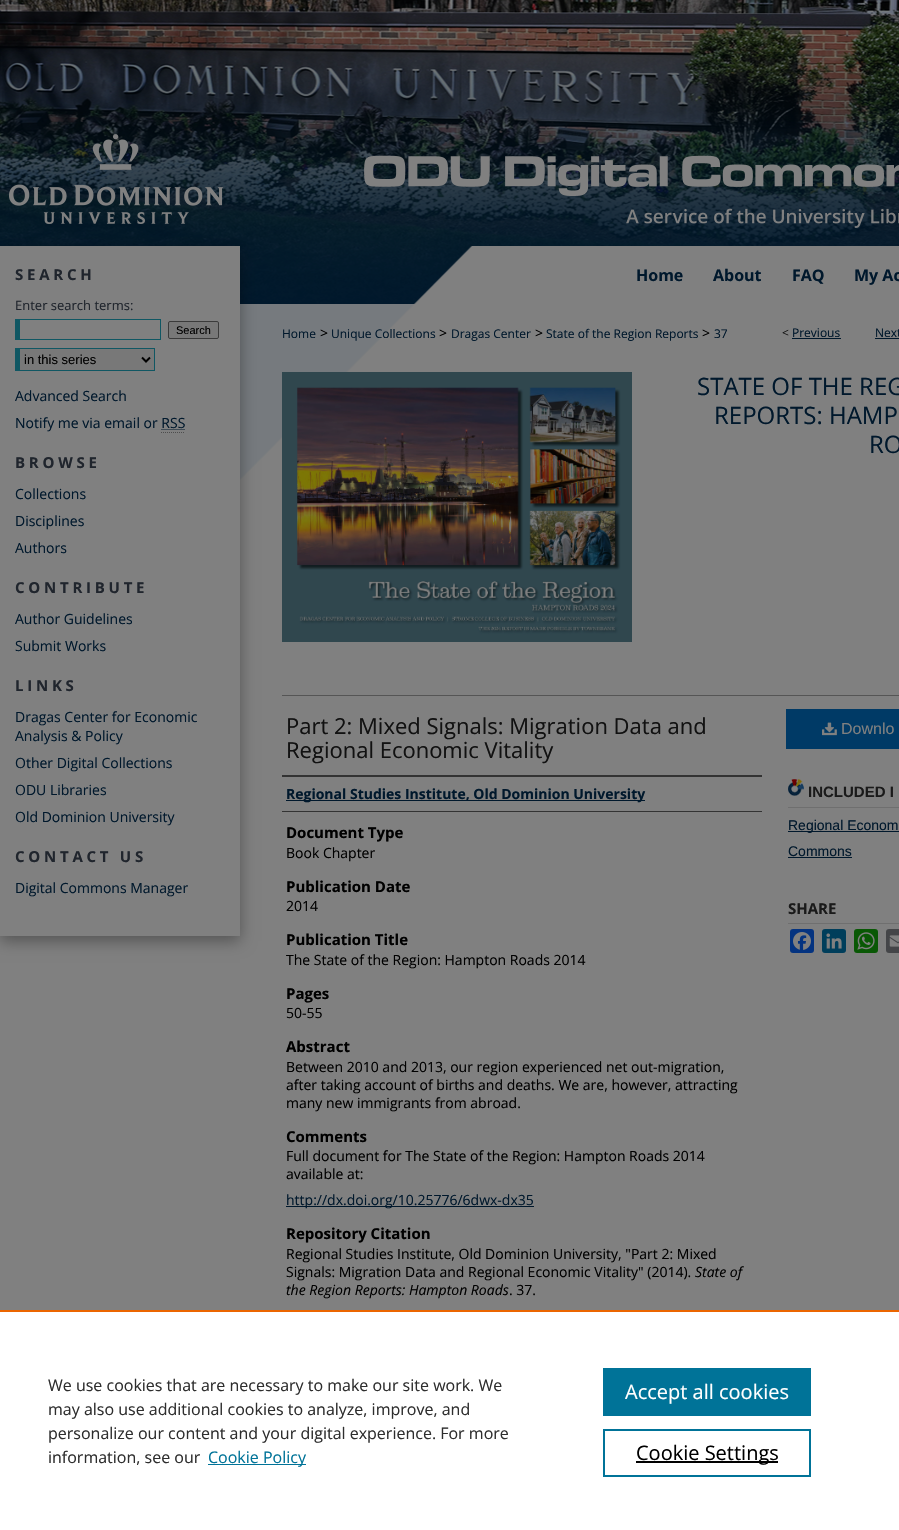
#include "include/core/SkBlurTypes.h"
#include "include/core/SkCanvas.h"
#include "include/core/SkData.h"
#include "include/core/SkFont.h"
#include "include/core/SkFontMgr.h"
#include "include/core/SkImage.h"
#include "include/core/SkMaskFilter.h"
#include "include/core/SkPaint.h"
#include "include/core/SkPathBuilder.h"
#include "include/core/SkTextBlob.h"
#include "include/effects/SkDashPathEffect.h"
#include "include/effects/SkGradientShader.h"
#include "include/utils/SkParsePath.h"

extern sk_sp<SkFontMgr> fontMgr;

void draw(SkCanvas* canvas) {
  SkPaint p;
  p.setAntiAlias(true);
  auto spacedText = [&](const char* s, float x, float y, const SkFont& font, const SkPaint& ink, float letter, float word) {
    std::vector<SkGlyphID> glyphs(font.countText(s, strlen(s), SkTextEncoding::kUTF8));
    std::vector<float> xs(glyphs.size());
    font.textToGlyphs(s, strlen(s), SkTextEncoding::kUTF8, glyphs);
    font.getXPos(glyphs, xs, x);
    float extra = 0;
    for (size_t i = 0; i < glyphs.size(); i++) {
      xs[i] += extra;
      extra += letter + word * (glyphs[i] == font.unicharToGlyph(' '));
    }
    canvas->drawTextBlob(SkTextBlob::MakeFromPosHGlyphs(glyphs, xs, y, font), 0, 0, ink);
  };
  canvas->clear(SkColorSetRGB(128, 128, 128));
  canvas->drawImageRect(SkImages::DeferredFromEncodedData(SkData::MakeFromFileName("images/1.png")), SkRect::MakeLTRB(0, 0, 899, 722), SkSamplingOptions());
  canvas->drawImageRect(SkImages::DeferredFromEncodedData(SkData::MakeFromFileName("images/2.png")), SkRect::MakeLTRB(9, 134, 224, 224), SkSamplingOptions());
  canvas->drawImageRect(SkImages::DeferredFromEncodedData(SkData::MakeFromFileName("images/3.png")), SkRect::MakeLTRB(364, 155, 899, 228), SkSamplingOptions());
  p.setColor(SkColorSetARGB(89, 0, 0, 0));
  p.setMaskFilter(SkMaskFilter::MakeBlur(kNormal_SkBlurStyle, 7.5f));
  canvas->drawRect(SkRect::MakeLTRB(0, 251, 240, 941), p);
  p.setMaskFilter(nullptr);
  p.setColor(SkColorSetRGB(128, 128, 128));
  canvas->drawRect(SkRect::MakeLTRB(0, 246, 240, 936), p);
  p.setColor(SkColorSetRGB(16, 87, 99));
  canvas->drawRect(SkRect::MakeLTRB(15, 319, 161, 320), p);
  canvas->drawRect(SkRect::MakeLTRB(160, 319, 161, 340), p);
  canvas->drawRect(SkRect::MakeLTRB(15, 339, 161, 340), p);
  canvas->drawRect(SkRect::MakeLTRB(15, 319, 20, 340), p);
  p.setColor(SkColorSetRGB(120, 120, 120));
  canvas->drawRoundRect(SkRect::MakeLTRB(168.5f, 321.5f, 218.5f, 338.5f), 1.5f, 1.5f, p);
  p.setStyle(SkPaint::kStroke_Style);
  p.setStrokeWidth(1);
  p.setColor(SkColorSetRGB(59, 59, 59));
  canvas->drawRoundRect(SkRect::MakeLTRB(168.5f, 321.5f, 218.5f, 338.5f), 1.5f, 1.5f, p);
  p.setStyle(SkPaint::kFill_Style);
  p.setColor(SkColorSetRGB(120, 120, 120));
  canvas->drawRect(SkRect::MakeLTRB(20, 349, 154, 370), p);
  p.setColor(SkColorSetRGB(16, 87, 99));
  canvas->drawRect(SkRect::MakeLTRB(15, 348, 155, 349), p);
  canvas->drawRect(SkRect::MakeLTRB(154, 348, 155, 371), p);
  canvas->drawRect(SkRect::MakeLTRB(15, 370, 155, 371), p);
  canvas->drawRect(SkRect::MakeLTRB(15, 348, 20, 371), p);
  p.setStyle(SkPaint::kStroke_Style);
  p.setStrokeWidth(2);
  p.setColor(SK_ColorBLACK);
  canvas->drawPath(SkPathBuilder().moveTo(142, 357.5f).lineTo(146, 361.5f).lineTo(150, 357.5f).detach(), p);
  p.setStrokeWidth(1);
  p.setColor(SkColorSetRGB(0, 24, 44));
  p.setPathEffect(SkDashPathEffect::Make({{1, 1}}, 0));
  canvas->drawPath(SkPathBuilder().moveTo(161.5f, 429.5f).lineTo(185.5f, 429.5f).detach(), p);
  p.setPathEffect(nullptr);
  p.setColor(SkColorSetRGB(77, 77, 77));
  p.setPathEffect(SkDashPathEffect::Make({{1, 1}}, 0));
  canvas->drawPath(SkPathBuilder().moveTo(161, 432.5f).lineTo(185, 432.5f).detach(), p);
  p.setPathEffect(nullptr);
  p.setStyle(SkPaint::kFill_Style);
  p.setColor(SkColorSetRGB(0, 24, 44));
  canvas->drawRect(SkRect::MakeLTRB(792, 338, 841, 339), p);
  canvas->drawRect(SkRect::MakeLTRB(875, 338, 899, 339), p);
  canvas->drawImageRect(SkImages::DeferredFromEncodedData(SkData::MakeFromFileName("images/4.png")), SkRect::MakeLTRB(282, 372, 632, 642), SkSamplingOptions());
  p.setColor(SkColorSetRGB(85, 85, 85));
  canvas->drawRect(SkRect::MakeLTRB(282, 695, 899, 696), p);
  p.setColor(SkColorSetRGB(51, 51, 51));
  canvas->drawRect(SkRect::MakeLTRB(282, 775, 762, 777), p);
  canvas->drawRect(SkRect::MakeLTRB(282, 811, 762, 812), p);
  p.setColor(SkColorSetRGB(0, 24, 44));
  canvas->drawRect(SkRect::MakeLTRB(286, 800, 645, 801), p);
  canvas->drawRect(SkRect::MakeLTRB(286, 1206, 534, 1207), p);
  p.setColor(SkColorSetRGB(0, 58, 102));
  canvas->drawRect(SkRect::MakeLTRB(786, 709, 899, 749), p);
  canvas->drawImageRect(SkImages::DeferredFromEncodedData(SkData::MakeFromFileName("images/5.png")), SkRect::MakeLTRB(822, 722, 837, 736), SkSamplingOptions());
  canvas->drawImageRect(SkImages::DeferredFromEncodedData(SkData::MakeFromFileName("images/6.png")), SkRect::MakeLTRB(788, 779, 804, 796), SkSamplingOptions());
  p.setColor(SkColorSetRGB(111, 111, 111));
  canvas->drawRect(SkRect::MakeLTRB(788, 807, 899, 808), p);
  p.setColor(SkColorSetRGB(0, 24, 44));
  canvas->drawRect(SkRect::MakeLTRB(788, 831, 899, 832), p);
  canvas->drawRect(SkRect::MakeLTRB(788, 857, 852, 858), p);
  p.setColor(SkColorSetRGB(111, 111, 111));
  canvas->drawRect(SkRect::MakeLTRB(788, 923, 899, 924), p);
  p.setColor(SkColorSetRGB(4, 51, 128));
  canvas->drawRoundRect(SkRect::MakeLTRB(790, 929, 814, 953), 3, 3, p);
  canvas->drawImageRect(SkImages::DeferredFromEncodedData(SkData::MakeFromFileName("images/7.png")), SkRect::MakeLTRB(793, 932, 811, 950), SkSamplingOptions());
  p.setColor(SkColorSetRGB(0, 62, 91));
  canvas->drawRoundRect(SkRect::MakeLTRB(822, 929, 846, 953), 3, 3, p);
  canvas->drawImageRect(SkImages::DeferredFromEncodedData(SkData::MakeFromFileName("images/8.png")), SkRect::MakeLTRB(826, 933, 842, 949), SkSamplingOptions());
  p.setColor(SkColorSetRGB(9, 88, 5));
  canvas->drawRoundRect(SkRect::MakeLTRB(854, 929, 878, 953), 3, 3, p);
  canvas->drawImageRect(SkImages::DeferredFromEncodedData(SkData::MakeFromFileName("images/9.png")), SkRect::MakeLTRB(857, 932, 875, 950), SkSamplingOptions());
  p.setColor(SkColorSetRGB(68, 69, 72));
  canvas->drawRoundRect(SkRect::MakeLTRB(886, 929, 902, 953), 3, 3, p);
  canvas->drawImageRect(SkImages::DeferredFromEncodedData(SkData::MakeFromFileName("images/10.png")), SkRect::MakeLTRB(889, 935, 899, 947), SkSamplingOptions());
  p.setColor(SK_ColorWHITE);
  canvas->drawRect(SkRect::MakeLTRB(0, 1312, 899, 1530), p);
  p.setColor(SkColorSetRGB(235, 101, 0));
  canvas->drawRect(SkRect::MakeLTRB(0, 1310, 899, 1312), p);
  p.setColor(SkColorSetRGB(0, 115, 152));
  canvas->drawRect(SkRect::MakeLTRB(208, 1464, 306, 1465), p);
  canvas->drawRect(SkRect::MakeLTRB(603, 1368, 811, 1416), p);
  p.setStyle(SkPaint::kStroke_Style);
  p.setStrokeWidth(2);
  canvas->drawRect(SkRect::MakeLTRB(604, 1430, 810, 1476), p);
  p.setStyle(SkPaint::kFill_Style);
  p.setColor(SK_ColorBLACK);
  canvas->drawRect(SkRect::MakeLTRB(636, 1461, 778, 1463), p);
  SkFont font1(fontMgr->matchFamilyStyle("Open Sans", SkFontStyle::Bold()), 16);
  font1.setSubpixel(true);
  p.setColor(SkColorSetRGB(0, 24, 44));
  canvas->drawString("Home", 636, 281, font1, p);
  canvas->drawString("About", 713, 281, font1, p);
  canvas->drawString("FAQ", 792, 281, font1, p);
  canvas->drawString("My Ac", 854, 281, font1, p);
  SkFont font2(fontMgr->matchFamilyStyle("Open Sans", SkFontStyle::Bold()), 15);
  font2.setSubpixel(true);
  p.setColor(SkColorSetRGB(32, 37, 45));
  spacedText("SEARCH", 15, 280, font2, p, 3.75f, 0);
  SkFont font3(fontMgr->matchFamilyStyle("Open Sans", SkFontStyle::Normal()), 13);
  font3.setSubpixel(true);
  canvas->drawString("Enter search terms:", 15, 310, font3, p);
  SkFont font4(fontMgr->matchFamilyStyle("Liberation Sans", SkFontStyle::Normal()), 11);
  font4.setSubpixel(true);
  p.setColor(SK_ColorBLACK);
  canvas->drawString("Search", 176, 334, font4, p);
  SkFont font5(fontMgr->matchFamilyStyle("Liberation Sans", SkFontStyle::Normal()), 13);
  font5.setSubpixel(true);
  canvas->drawString("in this series", 24, 364, font5, p);
  SkFont font6(fontMgr->matchFamilyStyle("Open Sans", SkFontStyle::Normal()), 14);
  font6.setSubpixel(true);
  p.setColor(SkColorSetRGB(0, 24, 44));
  canvas->drawString("Advanced Search", 15, 401, font6, p);
  canvas->drawString("Notify me via email or RSS", 15, 428, font6, p);
  p.setColor(SkColorSetRGB(32, 37, 45));
  spacedText("BROWSE", 15, 468, font2, p, 3.75f, 0);
  p.setColor(SkColorSetRGB(0, 24, 44));
  canvas->drawString("Collections", 15, 499, font6, p);
  canvas->drawString("Disciplines", 15, 526, font6, p);
  canvas->drawString("Authors", 15, 553, font6, p);
  p.setColor(SkColorSetRGB(32, 37, 45));
  spacedText("CONTRIBUTE", 15, 593, font2, p, 3.75f, 0);
  p.setColor(SkColorSetRGB(0, 24, 44));
  canvas->drawString("Author Guidelines", 15, 624, font6, p);
  canvas->drawString("Submit Works", 15, 651, font6, p);
  p.setColor(SkColorSetRGB(32, 37, 45));
  spacedText("LINKS", 15, 691, font2, p, 3.75f, 0);
  p.setColor(SkColorSetRGB(0, 24, 44));
  canvas->drawString("Dragas Center for Economic", 15, 722, font6, p);
  canvas->drawString("Analysis & Policy", 15, 741, font6, p);
  canvas->drawString("Other Digital Collections", 15, 768, font6, p);
  canvas->drawString("ODU Libraries", 15, 795, font6, p);
  canvas->drawString("Old Dominion University", 15, 822, font6, p);
  p.setColor(SkColorSetRGB(32, 37, 45));
  spacedText("CONTACT US", 15, 862, font2, p, 3.75f, 0);
  p.setColor(SkColorSetRGB(0, 24, 44));
  canvas->drawString("Digital Commons Manager", 15, 893, font6, p);
  SkFont font7(fontMgr->matchFamilyStyle("Open Sans", SkFontStyle::Normal()), 12);
  font7.setSubpixel(true);
  canvas->drawString("Home", 282, 338, font7, p);
  p.setColor(SK_ColorBLACK);
  canvas->drawString(">", 320, 338, font6, p);
  p.setColor(SkColorSetRGB(0, 24, 44));
  canvas->drawString("Unique Collections", 331, 338, font7, p);
  p.setColor(SK_ColorBLACK);
  canvas->drawString(">", 439, 338, font6, p);
  p.setColor(SkColorSetRGB(0, 24, 44));
  canvas->drawString("Dragas Center", 451, 338, font7, p);
  p.setColor(SK_ColorBLACK);
  canvas->drawString(">", 535, 338, font6, p);
  p.setColor(SkColorSetRGB(0, 24, 44));
  canvas->drawString("State of the Region Reports", 546, 338, font7, p);
  p.setColor(SK_ColorBLACK);
  canvas->drawString(">", 702, 338, font6, p);
  p.setColor(SkColorSetRGB(0, 24, 44));
  canvas->drawString("37", 714, 338, font7, p);
  p.setColor(SkColorSetRGB(17, 17, 17));
  canvas->drawString("<", 782, 337, font7, p);
  p.setColor(SkColorSetRGB(0, 24, 44));
  canvas->drawString("Previous", 792, 337, font7, p);
  canvas->drawString("Next", 875, 337, font7, p);
  SkFont font8(fontMgr->matchFamilyStyle("Open Sans", SkFontStyle::Normal()), 24);
  font8.setSubpixel(true);
  canvas->drawString("STATE OF THE REG", 697, 395, font8, p);
  canvas->drawString("REPORTS: HAMP", 714, 424, font8, p);
  canvas->drawString("RO", 869, 453, font8, p);
  SkFont font9(fontMgr->matchFamilyStyle("Open Sans", SkFontStyle::Normal()), 22);
  font9.setSubpixel(true);
  p.setColor(SkColorSetRGB(17, 17, 17));
  canvas->drawString("Part 2: Mixed Signals: Migration Data and", 286, 734, font9, p);
  canvas->drawString("Regional Economic Vitality", 286, 758, font9, p);
  SkFont font10(fontMgr->matchFamilyStyle("Open Sans", SkFontStyle::Bold()), 14);
  font10.setSubpixel(true);
  p.setColor(SkColorSetRGB(0, 24, 44));
  canvas->drawString("Regional Studies Institute, Old Dominion University", 286, 799, font10, p);
  p.setColor(SK_ColorBLACK);
  canvas->drawString("Document Type", 286, 838, font2, p);
  canvas->drawString("Book Chapter", 286, 858, font6, p);
  canvas->drawString("Publication Date", 286, 892, font2, p);
  canvas->drawString("2014", 286, 911, font6, p);
  canvas->drawString("Publication Title", 286, 945, font2, p);
  canvas->drawString("The State of the Region: Hampton Roads 2014", 286, 965, font6, p);
  canvas->drawString("Pages", 286, 999, font2, p);
  canvas->drawString("50-55", 286, 1018, font6, p);
  canvas->drawString("Abstract", 286, 1052, font2, p);
  canvas->drawString("Between 2010 and 2013, our region experienced net out-migration,", 286, 1072, font6, p);
  canvas->drawString("after taking account of births and deaths. We are, however, attracting", 286, 1090, font6, p);
  canvas->drawString("many new immigrants from abroad.", 286, 1108, font6, p);
  canvas->drawString("Comments", 286, 1142, font2, p);
  canvas->drawString("Full document for The State of the Region: Hampton Roads 2014", 286, 1161, font6, p);
  canvas->drawString("available at:", 286, 1179, font6, p);
  p.setColor(SkColorSetRGB(0, 24, 44));
  canvas->drawString("http://dx.doi.org/10.25776/6dwx-dx35", 286, 1205, font6, p);
  p.setColor(SK_ColorBLACK);
  canvas->drawString("Repository Citation", 286, 1239, font2, p);
  canvas->drawString("Regional Studies Institute, Old Dominion University, \"Part 2: Mixed", 286, 1259, font6, p);
  canvas->drawString("Signals: Migration Data and Regional Economic Vitality\" (2014).", 286, 1277, font6, p);
  SkFont font11(fontMgr->matchFamilyStyle("Open Sans", SkFontStyle::Italic()), 14);
  font11.setSubpixel(true);
  canvas->drawString("State of", 695, 1277, font11, p);
  canvas->drawString("the Region Reports: Hampton Roads", 286, 1295, font11, p);
  canvas->drawString(". 37.", 509, 1295, font6, p);
  SkFont font12(fontMgr->matchFamilyStyle("Liberation Sans", SkFontStyle::Normal()), 16);
  font12.setSubpixel(true);
  p.setColor(SkColorSetRGB(128, 128, 128));
  canvas->drawString("Downlo", 841, 734, font12, p);
  SkFont font13(fontMgr->matchFamilyStyle("Liberation Sans", SkFontStyle::Bold()), 15);
  font13.setSubpixel(true);
  p.setColor(SkColorSetRGB(26, 26, 26));
  canvas->drawString("INCLUDED I", 808, 797, font13, p);
  SkFont font14(fontMgr->matchFamilyStyle("Liberation Sans", SkFontStyle::Normal()), 14);
  font14.setSubpixel(true);
  p.setColor(SkColorSetRGB(0, 24, 44));
  canvas->drawString("Regional Econom", 788, 830, font14, p);
  canvas->drawString("Commons", 788, 856, font14, p);
  p.setColor(SkColorSetRGB(26, 26, 26));
  canvas->drawString("SHARE", 788, 914, font2, p);
  SkFont font15(fontMgr->matchFamilyStyle("Open Sans", SkFontStyle::Normal()), 16);
  font15.setSubpixel(true);
  p.setColor(SkColorSetRGB(46, 46, 46));
  canvas->drawString("We use cookies that are necessary to make our site work. We", 48, 1391, font15, p);
  canvas->drawString("may also use additional cookies to analyze, improve, and", 48, 1415, font15, p);
  canvas->drawString("personalize our content and your digital experience. For more", 48, 1439, font15, p);
  canvas->drawString("information, see our", 48, 1463, font15, p);
  p.setColor(SkColorSetRGB(0, 115, 152));
  canvas->drawString("Cookie Policy", 208, 1463, font15, p);
  SkFont font16(fontMgr->matchFamilyStyle("Open Sans", SkFontStyle::Normal()), 20);
  font16.setSubpixel(true);
  p.setColor(SK_ColorWHITE);
  canvas->drawString("Accept all cookies", 625, 1399, font16, p);
  p.setColor(SK_ColorBLACK);
  canvas->drawString("Cookie Settings", 636, 1460, font16, p);
}
